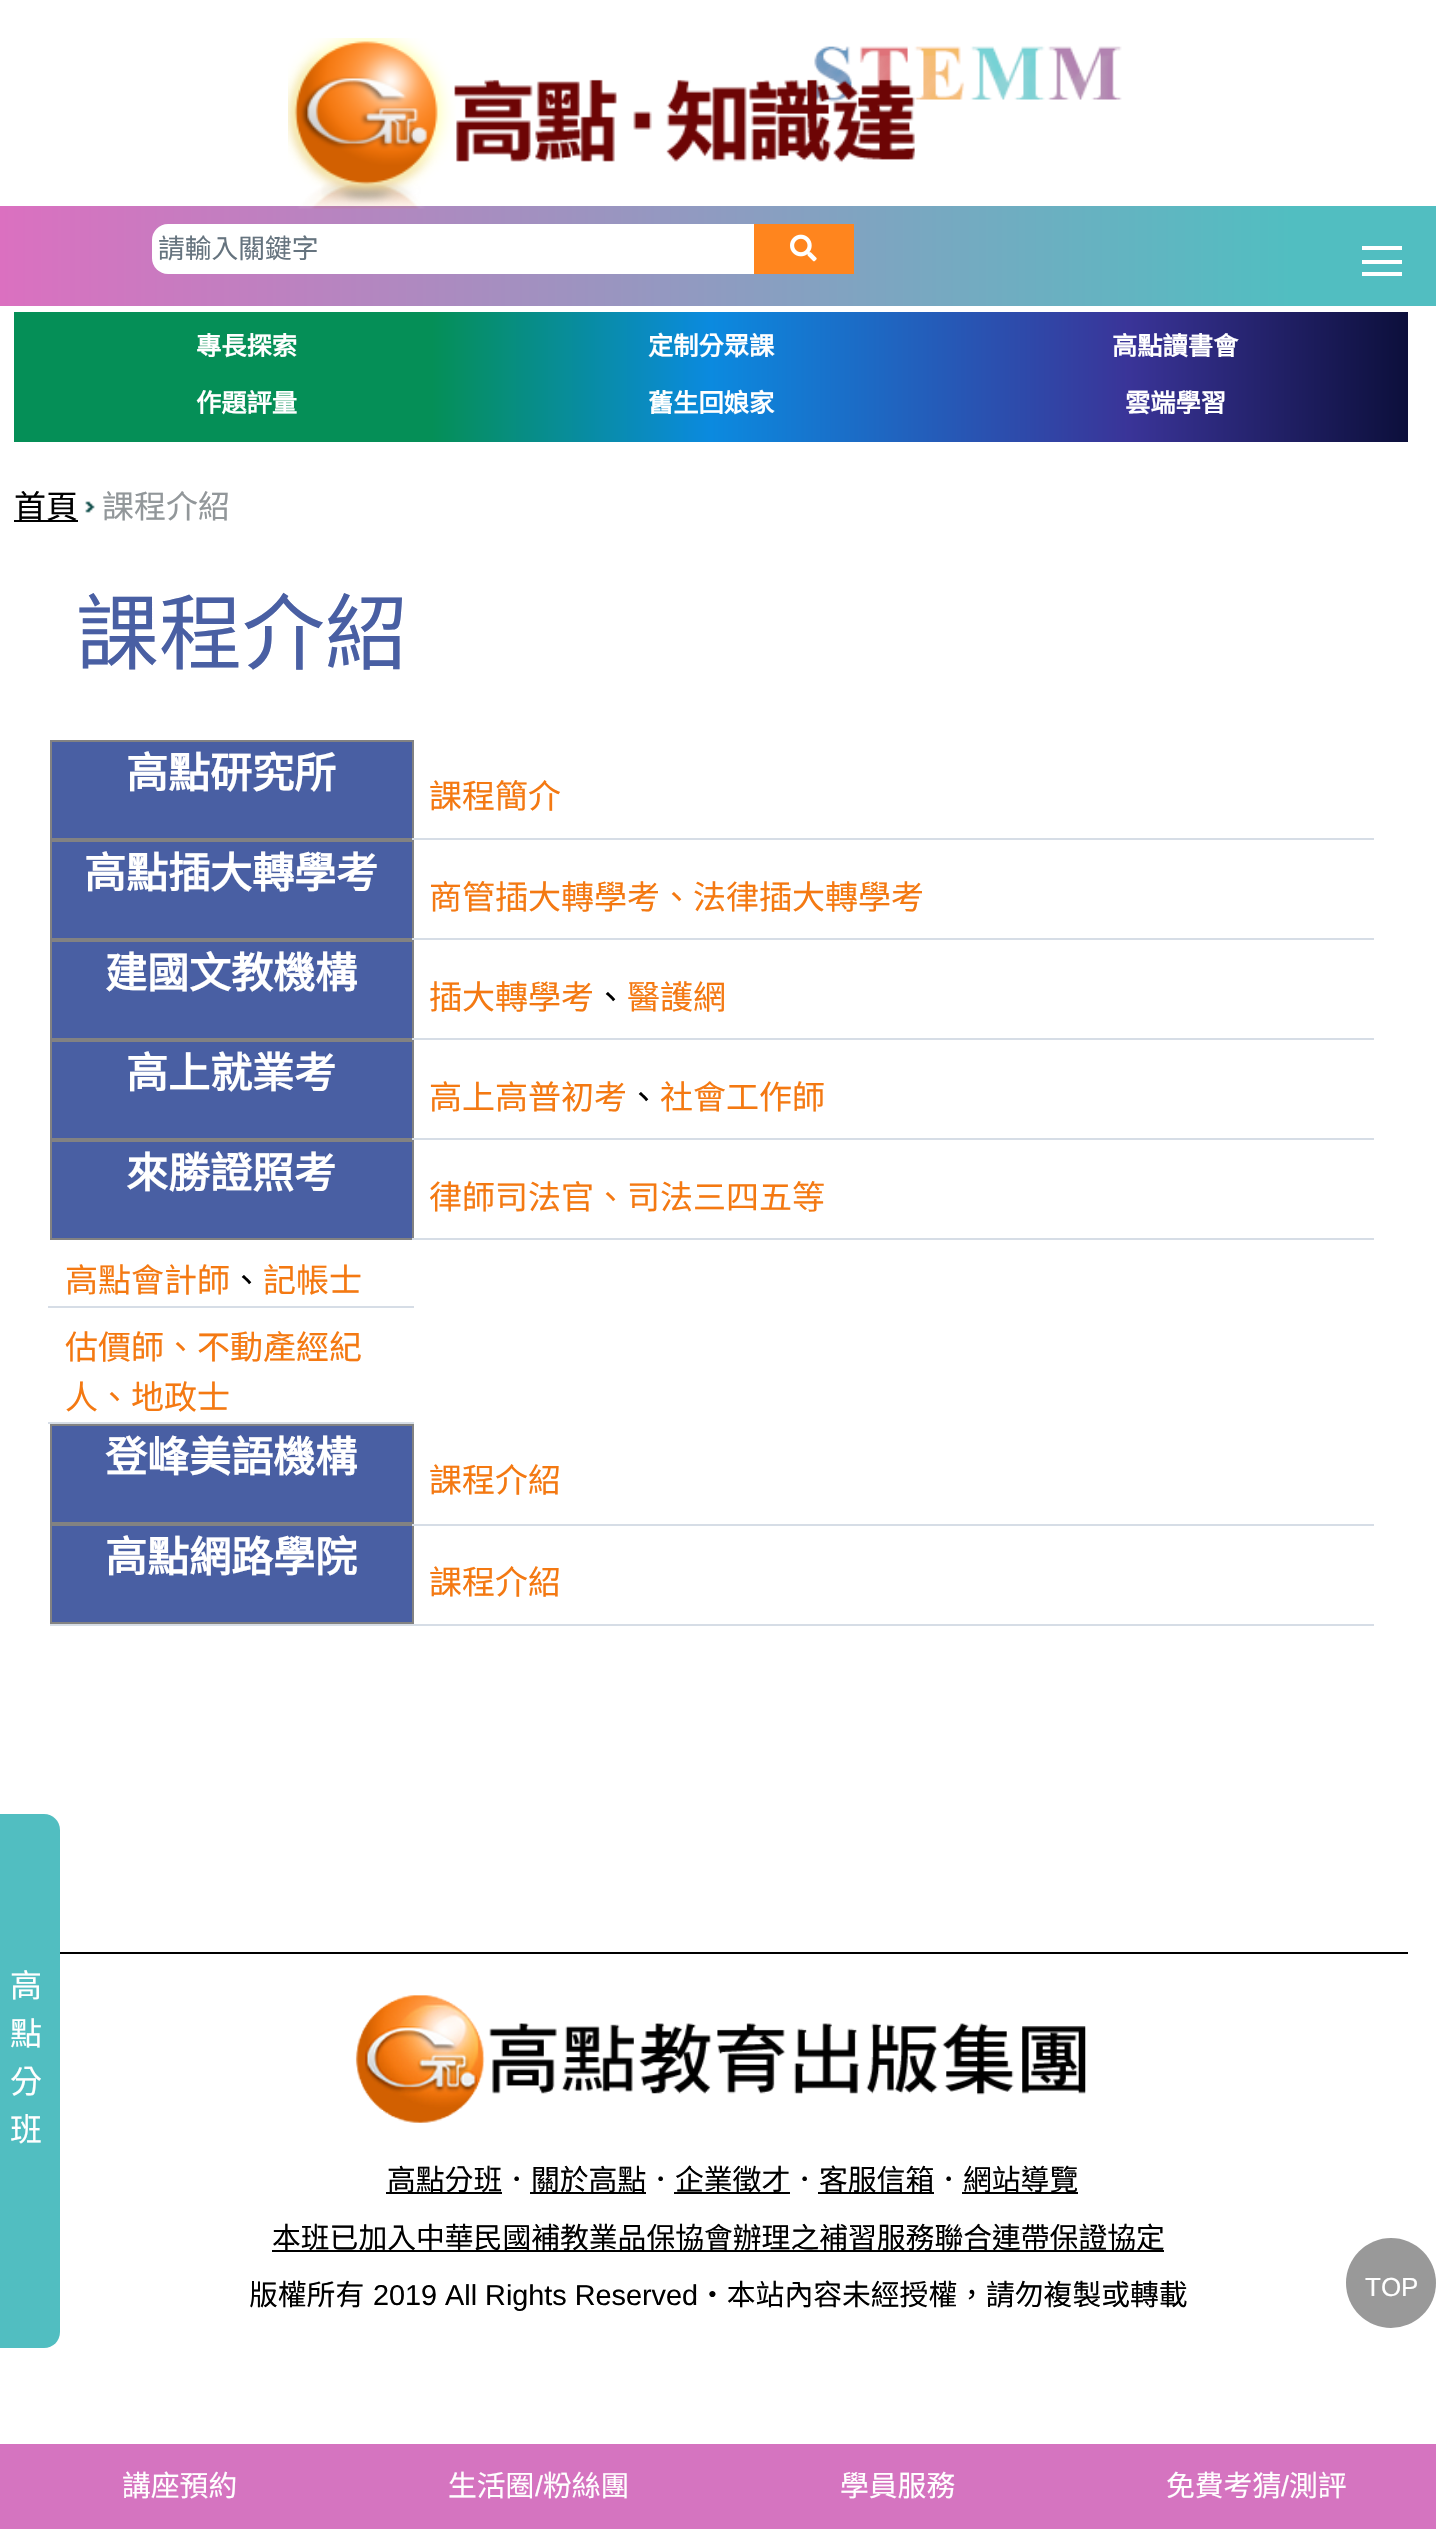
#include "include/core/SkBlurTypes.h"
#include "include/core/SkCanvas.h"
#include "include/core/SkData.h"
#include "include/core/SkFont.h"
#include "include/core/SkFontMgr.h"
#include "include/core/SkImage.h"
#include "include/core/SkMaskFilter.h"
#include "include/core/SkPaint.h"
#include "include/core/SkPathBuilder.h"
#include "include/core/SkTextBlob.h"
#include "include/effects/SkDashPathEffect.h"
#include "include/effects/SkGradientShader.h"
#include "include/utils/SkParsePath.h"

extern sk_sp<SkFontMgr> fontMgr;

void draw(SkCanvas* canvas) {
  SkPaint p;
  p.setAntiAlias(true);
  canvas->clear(SK_ColorWHITE);
  {
    const SkColor colors[] = {SkColorSetRGB(81, 190, 193), SkColorSetRGB(219, 112, 192)};
    const float stops[] = {0.1f, 1};
    const SkPoint ends[] = {{1436, 256}, {0, 256}};
    p.setShader(SkGradientShader::MakeLinear(ends, colors, stops, 2, SkTileMode::kClamp));
    p.setAlpha(255);
  }
  canvas->drawRect(SkRect::MakeLTRB(0, 206, 1436, 306), p);
  canvas->drawImageRect(SkImages::DeferredFromEncodedData(SkData::MakeFromFileName("images/1.png")), SkRect::MakeLTRB(288, 38, 1122, 209), SkSamplingOptions());
  p.setShader(nullptr);
  p.setColor(SK_ColorWHITE);
  canvas->drawRoundRect(SkRect::MakeLTRB(152, 224, 776, 274), 16, 16, p);
  p.setColor(SkColorSetRGB(255, 133, 30));
  canvas->drawRect(SkRect::MakeLTRB(754, 224, 854, 274), p);
  canvas->drawImageRect(SkImages::DeferredFromEncodedData(SkData::MakeFromFileName("images/2.png")), SkRect::MakeLTRB(790, 234, 817, 262), SkSamplingOptions());
  p.setColor(SK_ColorWHITE);
  canvas->drawRect(SkRect::MakeLTRB(1362, 246, 1402, 250), p);
  canvas->drawRect(SkRect::MakeLTRB(1362, 260, 1402, 264), p);
  canvas->drawRect(SkRect::MakeLTRB(1362, 272, 1402, 276), p);
  {
    const SkColor colors[] = {SkColorSetRGB(5, 143, 87), SkColorSetRGB(11, 138, 223), SkColorSetRGB(58, 52, 152), SkColorSetRGB(12, 15, 59)};
    const float stops[] = {0.3f, 0.5f, 0.8f, 1};
    const SkPoint ends[] = {{14, 377}, {1408, 377}};
    p.setShader(SkGradientShader::MakeLinear(ends, colors, stops, 4, SkTileMode::kClamp));
    p.setAlpha(255);
  }
  canvas->drawRect(SkRect::MakeLTRB(14, 312, 1408, 442), p);
  p.setShader(nullptr);
  p.setColor(SK_ColorBLACK);
  canvas->drawRect(SkRect::MakeLTRB(14, 520, 78, 522), p);
  canvas->drawImageRect(SkImages::DeferredFromEncodedData(SkData::MakeFromFileName("images/3.png")), SkRect::MakeLTRB(85, 501, 95, 513), SkSamplingOptions());
  p.setColor(SkColorSetRGB(214, 221, 230));
  canvas->drawRect(SkRect::MakeLTRB(50, 1624, 1374, 1626), p);
  p.setColor(SkColorSetRGB(73, 95, 163));
  canvas->drawRect(SkRect::MakeLTRB(51, 741, 413, 839), p);
  p.setStyle(SkPaint::kStroke_Style);
  p.setStrokeWidth(2);
  p.setColor(SkColorSetRGB(130, 130, 130));
  canvas->drawRect(SkRect::MakeLTRB(51, 741, 413, 839), p);
  p.setStyle(SkPaint::kFill_Style);
  p.setColor(SkColorSetRGB(214, 221, 230));
  canvas->drawRect(SkRect::MakeLTRB(412, 838, 1374, 840), p);
  p.setColor(SkColorSetRGB(73, 95, 163));
  canvas->drawRect(SkRect::MakeLTRB(51, 841, 413, 939), p);
  p.setStyle(SkPaint::kStroke_Style);
  p.setColor(SkColorSetRGB(130, 130, 130));
  canvas->drawRect(SkRect::MakeLTRB(51, 841, 413, 939), p);
  p.setStyle(SkPaint::kFill_Style);
  p.setColor(SkColorSetRGB(214, 221, 230));
  canvas->drawRect(SkRect::MakeLTRB(412, 938, 1374, 940), p);
  p.setColor(SkColorSetRGB(73, 95, 163));
  canvas->drawRect(SkRect::MakeLTRB(51, 941, 413, 1039), p);
  p.setStyle(SkPaint::kStroke_Style);
  p.setColor(SkColorSetRGB(130, 130, 130));
  canvas->drawRect(SkRect::MakeLTRB(51, 941, 413, 1039), p);
  p.setStyle(SkPaint::kFill_Style);
  p.setColor(SkColorSetRGB(214, 221, 230));
  canvas->drawRect(SkRect::MakeLTRB(412, 1038, 1374, 1040), p);
  p.setColor(SkColorSetRGB(73, 95, 163));
  canvas->drawRect(SkRect::MakeLTRB(51, 1041, 413, 1139), p);
  p.setStyle(SkPaint::kStroke_Style);
  p.setColor(SkColorSetRGB(130, 130, 130));
  canvas->drawRect(SkRect::MakeLTRB(51, 1041, 413, 1139), p);
  p.setStyle(SkPaint::kFill_Style);
  p.setColor(SkColorSetRGB(214, 221, 230));
  canvas->drawRect(SkRect::MakeLTRB(412, 1138, 1374, 1140), p);
  p.setColor(SkColorSetRGB(73, 95, 163));
  canvas->drawRect(SkRect::MakeLTRB(51, 1141, 413, 1239), p);
  p.setStyle(SkPaint::kStroke_Style);
  p.setColor(SkColorSetRGB(130, 130, 130));
  canvas->drawRect(SkRect::MakeLTRB(51, 1141, 413, 1239), p);
  p.setStyle(SkPaint::kFill_Style);
  p.setColor(SkColorSetRGB(214, 221, 230));
  canvas->drawRect(SkRect::MakeLTRB(412, 1238, 1374, 1240), p);
  canvas->drawRect(SkRect::MakeLTRB(48, 1306, 414, 1308), p);
  canvas->drawRect(SkRect::MakeLTRB(48, 1422, 414, 1424), p);
  p.setColor(SkColorSetRGB(73, 95, 163));
  canvas->drawRect(SkRect::MakeLTRB(51, 1425, 413, 1523), p);
  p.setStyle(SkPaint::kStroke_Style);
  p.setColor(SkColorSetRGB(130, 130, 130));
  canvas->drawRect(SkRect::MakeLTRB(51, 1425, 413, 1523), p);
  p.setStyle(SkPaint::kFill_Style);
  p.setColor(SkColorSetRGB(73, 95, 163));
  canvas->drawRect(SkRect::MakeLTRB(51, 1525, 413, 1623), p);
  p.setStyle(SkPaint::kStroke_Style);
  p.setColor(SkColorSetRGB(130, 130, 130));
  canvas->drawRect(SkRect::MakeLTRB(51, 1525, 413, 1623), p);
  p.setStyle(SkPaint::kFill_Style);
  p.setColor(SkColorSetRGB(214, 221, 230));
  canvas->drawRect(SkRect::MakeLTRB(412, 1524, 1374, 1526), p);
  p.setColor(SkColorSetRGB(81, 190, 193));
  canvas->drawPath(SkPathBuilder().moveTo(0, 1814).lineTo(44, 1814).cubicTo(53, 1814, 60, 1821, 60, 1830).lineTo(60, 2332).cubicTo(60, 2341, 53, 2348, 44, 2348).lineTo(0, 2348).close().detach(), p);
  p.setColor(SkColorSetRGB(213, 116, 192));
  canvas->drawRect(SkRect::MakeLTRB(0, 2444, 1436, 2529), p);
  p.setColor(SK_ColorBLACK);
  canvas->drawRect(SkRect::MakeLTRB(60, 1952, 1408, 1954), p);
  canvas->drawImageRect(SkImages::DeferredFromEncodedData(SkData::MakeFromFileName("images/4.png")), SkRect::MakeLTRB(355, 1995, 1086, 2123), SkSamplingOptions());
  canvas->drawRect(SkRect::MakeLTRB(386, 2192, 502, 2194), p);
  canvas->drawRect(SkRect::MakeLTRB(530, 2192, 646, 2194), p);
  canvas->drawRect(SkRect::MakeLTRB(674, 2192, 790, 2194), p);
  canvas->drawRect(SkRect::MakeLTRB(818, 2192, 934, 2194), p);
  canvas->drawRect(SkRect::MakeLTRB(962, 2192, 1078, 2194), p);
  canvas->drawRect(SkRect::MakeLTRB(272, 2250, 1164, 2252), p);
  p.setColor(SkColorSetRGB(153, 153, 153));
  canvas->drawCircle(1391, 2283, 45, p);
  SkFont font1(fontMgr->matchFamilyStyle("Noto Sans CJK TC", SkFontStyle::Normal()), 26.75f);
  font1.setSubpixel(true);
  p.setColor(SkColorSetRGB(101, 115, 126));
  canvas->drawString("請輸入關鍵字", 158, 258, font1, p);
  SkFont font2(fontMgr->matchFamilyStyle("Noto Sans CJK TC", SkFontStyle::Bold()), 25.25f);
  font2.setSubpixel(true);
  p.setColor(SK_ColorWHITE);
  canvas->drawString("專長探索", 196, 355, font2, p);
  canvas->drawString("定制分眾課", 648, 355, font2, p);
  canvas->drawString("高點讀書會", 1112, 355, font2, p);
  canvas->drawString("作題評量", 196, 412, font2, p);
  canvas->drawString("舊生回娘家", 648, 412, font2, p);
  canvas->drawString("雲端學習", 1125, 412, font2, p);
  SkFont font3(fontMgr->matchFamilyStyle("Noto Sans CJK TC", SkFontStyle::Normal()), 32);
  font3.setSubpixel(true);
  p.setColor(SK_ColorBLACK);
  canvas->drawString("首頁", 14, 518, font3, p);
  p.setColor(SkColorSetRGB(146, 151, 154));
  canvas->drawString("課程介紹", 102, 518, font3, p);
  SkFont font4(fontMgr->matchFamilyStyle("Noto Sans CJK TC", SkFontStyle::Normal()), 83);
  font4.setSubpixel(true);
  p.setColor(SkColorSetRGB(73, 95, 163));
  canvas->drawString("課程介紹", 76, 663, font4, p);
  SkFont font5(fontMgr->matchFamilyStyle("Noto Sans CJK TC", SkFontStyle::Bold()), 42);
  font5.setSubpixel(true);
  p.setColor(SK_ColorWHITE);
  canvas->drawString("高點研究所", 126, 788, font5, p);
  SkFont font6(fontMgr->matchFamilyStyle("Noto Sans CJK TC", SkFontStyle::Normal()), 33);
  font6.setSubpixel(true);
  p.setColor(SkColorSetRGB(244, 121, 18));
  canvas->drawString("課程簡介", 429, 808, font6, p);
  p.setColor(SK_ColorWHITE);
  canvas->drawString("高點插大轉學考", 84, 888, font5, p);
  p.setColor(SkColorSetRGB(244, 121, 18));
  canvas->drawString("商管插大轉學考、法律插大轉學考", 429, 909, font6, p);
  p.setColor(SK_ColorWHITE);
  canvas->drawString("建國文教機構", 105, 988, font5, p);
  p.setColor(SkColorSetRGB(244, 121, 18));
  canvas->drawString("插大轉學考", 429, 1009, font6, p);
  p.setColor(SK_ColorBLACK);
  canvas->drawString("、", 594, 1009, font6, p);
  p.setColor(SkColorSetRGB(244, 121, 18));
  canvas->drawString("醫護網", 627, 1009, font6, p);
  p.setColor(SK_ColorWHITE);
  canvas->drawString("高上就業考", 126, 1088, font5, p);
  p.setColor(SkColorSetRGB(244, 121, 18));
  canvas->drawString("高上高普初考", 429, 1109, font6, p);
  p.setColor(SK_ColorBLACK);
  canvas->drawString("、", 627, 1109, font6, p);
  p.setColor(SkColorSetRGB(244, 121, 18));
  canvas->drawString("社會工作師", 660, 1109, font6, p);
  p.setColor(SK_ColorWHITE);
  canvas->drawString("來勝證照考", 126, 1188, font5, p);
  p.setColor(SkColorSetRGB(244, 121, 18));
  canvas->drawString("律師司法官、司法三四五等", 429, 1209, font6, p);
  canvas->drawString("高點會計師", 65, 1292, font6, p);
  p.setColor(SK_ColorBLACK);
  canvas->drawString("、", 230, 1292, font6, p);
  p.setColor(SkColorSetRGB(244, 121, 18));
  canvas->drawString("記帳士", 263, 1292, font6, p);
  canvas->drawString("估價師、不動產經紀", 65, 1359, font6, p);
  canvas->drawString("人、地政士", 65, 1409, font6, p);
  p.setColor(SK_ColorWHITE);
  canvas->drawString("登峰美語機構", 105, 1472, font5, p);
  p.setColor(SkColorSetRGB(244, 121, 18));
  canvas->drawString("課程介紹", 429, 1492, font6, p);
  p.setColor(SK_ColorWHITE);
  canvas->drawString("高點網路學院", 105, 1572, font5, p);
  p.setColor(SkColorSetRGB(244, 121, 18));
  canvas->drawString("課程介紹", 429, 1594, font6, p);
  p.setColor(SK_ColorWHITE);
  canvas->drawString("高", 10, 1997, font3, p);
  canvas->drawString("點", 10, 2045, font3, p);
  canvas->drawString("分", 10, 2093, font3, p);
  canvas->drawString("班", 10, 2141, font3, p);
  SkFont font7(fontMgr->matchFamilyStyle("Noto Sans CJK TC", SkFontStyle::Normal()), 28.8f);
  font7.setSubpixel(true);
  canvas->drawString("講座預約", 122, 2496, font7, p);
  canvas->drawString("生活圈", 448, 2496, font7, p);
  SkFont font8(fontMgr->matchFamilyStyle("Liberation Sans", SkFontStyle::Normal()), 28.8f);
  font8.setSubpixel(true);
  canvas->drawString("/", 535, 2496, font8, p);
  canvas->drawString("粉絲團", 543, 2496, font7, p);
  canvas->drawString("學員服務", 840, 2496, font7, p);
  canvas->drawString("免費考猜", 1166, 2496, font7, p);
  canvas->drawString("/", 1281, 2496, font8, p);
  canvas->drawString("測評", 1289, 2496, font7, p);
  p.setColor(SK_ColorBLACK);
  canvas->drawString("高點分班．", 387, 2190, font7, p);
  canvas->drawString("關於高點．", 531, 2190, font7, p);
  canvas->drawString("企業徵才．", 675, 2190, font7, p);
  canvas->drawString("客服信箱．", 819, 2190, font7, p);
  canvas->drawString("網站導覽", 963, 2190, font7, p);
  canvas->drawString("本班已加入中華民國補教業品保協會辦理之補習服務聯合連帶保證協定", 272, 2248, font7, p);
  canvas->drawString("版權所有", 249, 2305, font7, p);
  canvas->drawString("2019 All Rights Reserved", 373, 2305, font8, p);
  canvas->drawString("‧本站內容未經授權，請勿複製或轉載", 698, 2305, font7, p);
  SkFont font9(fontMgr->matchFamilyStyle("Liberation Sans", SkFontStyle::Normal()), 26);
  font9.setSubpixel(true);
  p.setColor(SK_ColorWHITE);
  canvas->drawString("TOP", 1365, 2296, font9, p);
}
